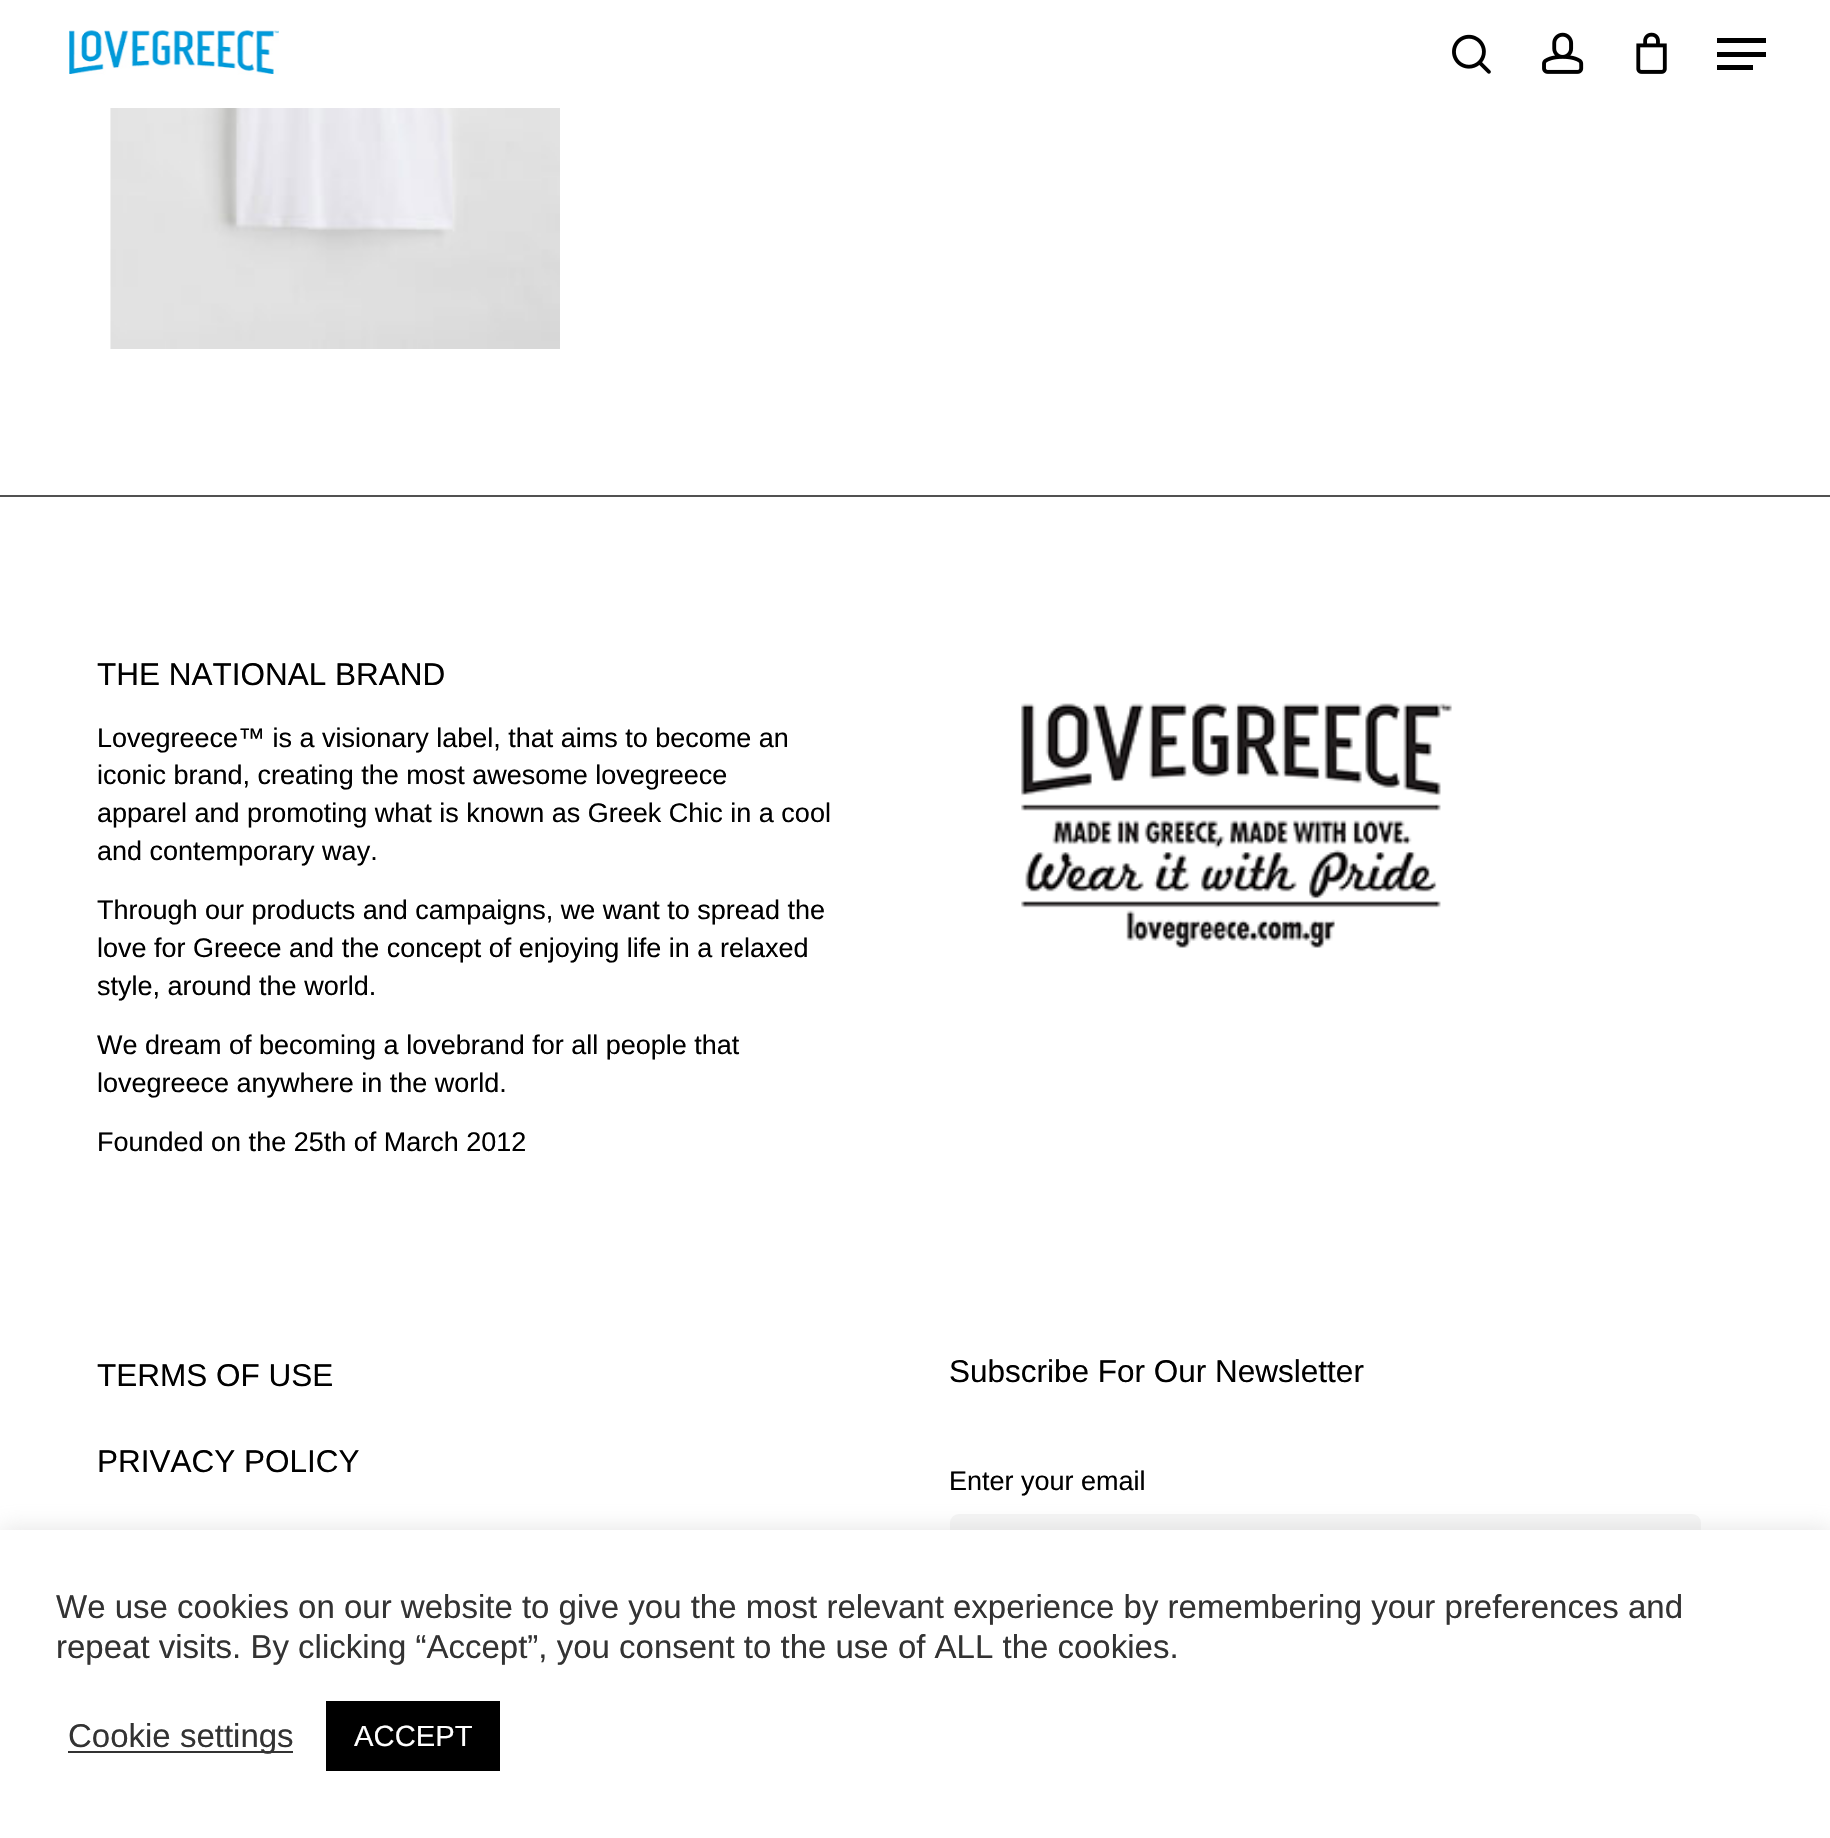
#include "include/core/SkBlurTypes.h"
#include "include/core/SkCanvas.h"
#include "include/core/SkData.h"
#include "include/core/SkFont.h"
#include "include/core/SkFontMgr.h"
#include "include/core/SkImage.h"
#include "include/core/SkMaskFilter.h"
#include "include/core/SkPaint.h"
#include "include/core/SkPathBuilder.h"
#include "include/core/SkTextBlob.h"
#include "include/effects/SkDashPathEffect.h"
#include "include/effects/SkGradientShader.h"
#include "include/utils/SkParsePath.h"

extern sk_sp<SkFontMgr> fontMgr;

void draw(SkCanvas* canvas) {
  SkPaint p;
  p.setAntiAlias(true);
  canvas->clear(SK_ColorWHITE);
  canvas->drawImageRect(SkImages::DeferredFromEncodedData(SkData::MakeFromFileName("images/1.png")), SkRect::MakeLTRB(69, 30, 279, 75), SkSamplingOptions());
  canvas->drawImageRect(SkImages::DeferredFromEncodedData(SkData::MakeFromFileName("images/2.png")), SkRect::MakeLTRB(1452, 34, 1491, 74), SkSamplingOptions());
  canvas->drawImageRect(SkImages::DeferredFromEncodedData(SkData::MakeFromFileName("images/3.png")), SkRect::MakeLTRB(1542, 32, 1584, 74), SkSamplingOptions());
  canvas->drawImageRect(SkImages::DeferredFromEncodedData(SkData::MakeFromFileName("images/4.png")), SkRect::MakeLTRB(1636, 32, 1667, 74), SkSamplingOptions());
  p.setColor(SK_ColorBLACK);
  canvas->drawRect(SkRect::MakeLTRB(1717, 38, 1766, 43), p);
  canvas->drawRect(SkRect::MakeLTRB(1717, 65, 1753, 70), p);
  canvas->drawRect(SkRect::MakeLTRB(1717, 52, 1766, 57), p);
  canvas->drawImageRect(SkImages::DeferredFromEncodedData(SkData::MakeFromFileName("images/5.png")), SkRect::MakeLTRB(110, 108, 560, 349), SkSamplingOptions());
  p.setColor(SkColorSetRGB(81, 81, 81));
  canvas->drawRect(SkRect::MakeLTRB(0, 495, 1830, 497), p);
  canvas->drawImageRect(SkImages::DeferredFromEncodedData(SkData::MakeFromFileName("images/6.png")), SkRect::MakeLTRB(1021, 703, 1452, 948), SkSamplingOptions());
  p.setColor(SkColorSetRGB(245, 245, 245));
  canvas->drawRoundRect(SkRect::MakeLTRB(950, 1514, 1701, 1604), 9, 9, p);
  p.setColor(SkColorSetARGB(77, 172, 171, 171));
  p.setMaskFilter(SkMaskFilter::MakeBlur(kNormal_SkBlurStyle, 11));
  canvas->drawRect(SkRect::MakeLTRB(0, 1528, 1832, 1836), p);
  p.setMaskFilter(nullptr);
  p.setColor(SK_ColorWHITE);
  canvas->drawRect(SkRect::MakeLTRB(0, 1530, 1830, 1838), p);
  p.setColor(SkColorSetRGB(51, 51, 51));
  canvas->drawRect(SkRect::MakeLTRB(68, 1751, 293, 1753), p);
  p.setColor(SK_ColorBLACK);
  canvas->drawRect(SkRect::MakeLTRB(326, 1701, 500, 1771), p);
  SkFont font1(fontMgr->matchFamilyStyle("Liberation Sans", SkFontStyle::Normal()), 31.5f);
  font1.setSubpixel(true);
  canvas->drawString("THE NATIONAL BRAND", 97, 685, font1, p);
  SkFont font2(fontMgr->matchFamilyStyle("Liberation Sans", SkFontStyle::Normal()), 27);
  font2.setSubpixel(true);
  canvas->drawString("Lovegreece™ is a visionary label, that aims to become an", 97, 747, font2, p);
  canvas->drawString("iconic brand, creating the most awesome lovegreece", 97, 784, font2, p);
  canvas->drawString("apparel and promoting what is known as Greek Chic in a cool", 97, 822, font2, p);
  canvas->drawString("and contemporary way.", 97, 860, font2, p);
  canvas->drawString("Through our products and campaigns, we want to spread the", 97, 919, font2, p);
  canvas->drawString("love for Greece and the concept of enjoying life in a relaxed", 97, 957, font2, p);
  canvas->drawString("style, around the world.", 97, 995, font2, p);
  canvas->drawString("We dream of becoming a lovebrand for all people that", 97, 1054, font2, p);
  canvas->drawString("lovegreece anywhere in the world.", 97, 1092, font2, p);
  canvas->drawString("Founded on the 25th of March 2012", 97, 1151, font2, p);
  canvas->drawString("TERMS OF USE", 97, 1386, font1, p);
  canvas->drawString("PRIVACY POLICY", 97, 1472, font1, p);
  canvas->drawString("Subscribe For Our Newsletter", 949, 1382, font1, p);
  canvas->drawString("Enter your email", 949, 1490, font2, p);
  SkFont font3(fontMgr->matchFamilyStyle("Liberation Sans", SkFontStyle::Normal()), 33);
  font3.setSubpixel(true);
  p.setColor(SkColorSetRGB(51, 51, 51));
  canvas->drawString("We use cookies on our website to give you the most relevant experience by remembering your preferences and", 56, 1618, font3, p);
  canvas->drawString("repeat visits. By clicking “Accept”, you consent to the use of ALL the cookies.", 56, 1658, font3, p);
  canvas->drawString("Cookie settings", 68, 1747, font3, p);
  SkFont font4(fontMgr->matchFamilyStyle("Liberation Sans", SkFontStyle::Normal()), 29.25f);
  font4.setSubpixel(true);
  p.setColor(SK_ColorWHITE);
  canvas->drawString("ACCEPT", 354, 1746, font4, p);
}
